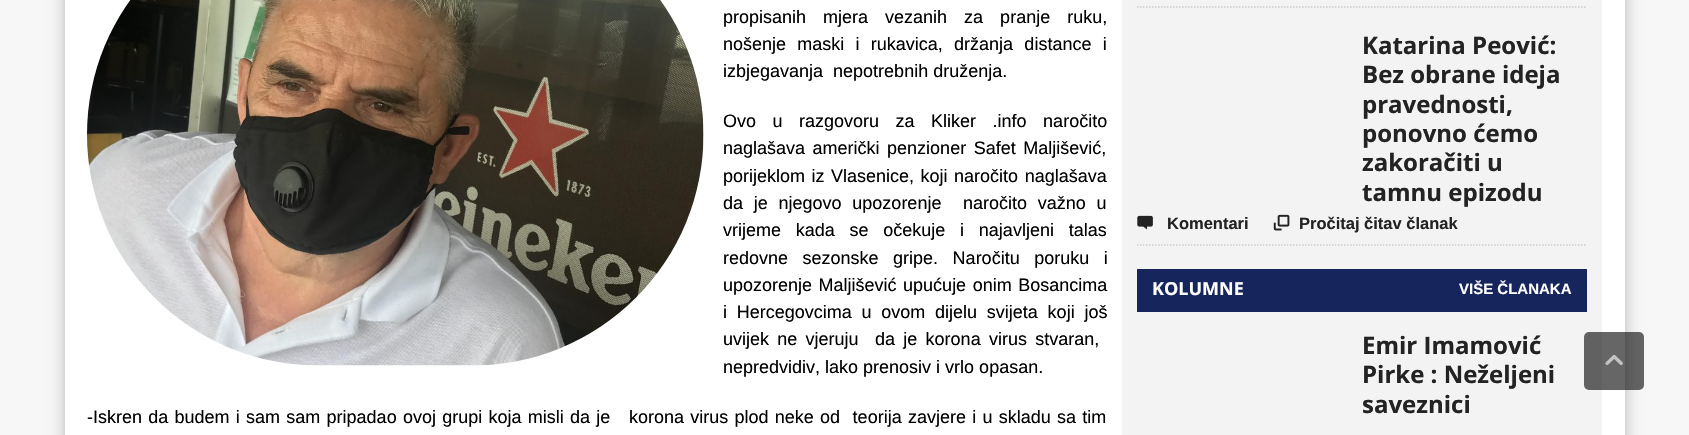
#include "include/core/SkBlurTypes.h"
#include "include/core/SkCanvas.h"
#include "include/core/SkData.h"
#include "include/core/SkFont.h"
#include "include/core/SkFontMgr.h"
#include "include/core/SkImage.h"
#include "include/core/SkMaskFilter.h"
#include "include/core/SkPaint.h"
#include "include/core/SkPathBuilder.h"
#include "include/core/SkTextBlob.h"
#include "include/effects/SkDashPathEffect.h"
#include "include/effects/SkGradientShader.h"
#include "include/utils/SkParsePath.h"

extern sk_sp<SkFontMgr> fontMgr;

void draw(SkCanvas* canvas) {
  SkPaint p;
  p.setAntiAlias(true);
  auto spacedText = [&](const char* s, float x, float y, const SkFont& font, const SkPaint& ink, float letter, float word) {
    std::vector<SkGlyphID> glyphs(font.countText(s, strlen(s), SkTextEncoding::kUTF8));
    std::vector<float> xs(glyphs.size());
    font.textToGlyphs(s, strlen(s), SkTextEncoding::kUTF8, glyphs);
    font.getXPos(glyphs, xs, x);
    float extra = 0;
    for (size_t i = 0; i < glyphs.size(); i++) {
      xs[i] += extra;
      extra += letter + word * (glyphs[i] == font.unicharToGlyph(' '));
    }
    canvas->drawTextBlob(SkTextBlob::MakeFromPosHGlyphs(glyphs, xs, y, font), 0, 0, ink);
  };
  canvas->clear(SkColorSetRGB(247, 247, 247));
  p.setColor(SkColorSetARGB(66, 0, 0, 0));
  p.setMaskFilter(SkMaskFilter::MakeBlur(kNormal_SkBlurStyle, 7.5f));
  canvas->drawRect(SkRect::MakeLTRB(65, -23, 1625, 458), p);
  p.setMaskFilter(nullptr);
  p.setColor(SK_ColorWHITE);
  canvas->drawRect(SkRect::MakeLTRB(65, 0, 1625, 435), p);
  canvas->drawImageRect(SkImages::DeferredFromEncodedData(SkData::MakeFromFileName("images/1.png")), SkRect::MakeLTRB(87, 0, 704, 366), SkSamplingOptions());
  p.setColor(SkColorSetRGB(243, 243, 243));
  canvas->drawRect(SkRect::MakeLTRB(1122, 0, 1602, 435), p);
  p.setStyle(SkPaint::kStroke_Style);
  p.setStrokeWidth(1.5f);
  p.setColor(SkColorSetRGB(204, 204, 204));
  p.setPathEffect(SkDashPathEffect::Make({{1.5f, 1.5f}}, 0));
  canvas->drawPath(SkPathBuilder().moveTo(1137, 245).lineTo(1587, 245).detach(), p);
  p.setPathEffect(nullptr);
  p.setPathEffect(SkDashPathEffect::Make({{1.5f, 1.5f}}, 0));
  canvas->drawPath(SkPathBuilder().moveTo(1137, 7).lineTo(1587, 7).detach(), p);
  p.setPathEffect(nullptr);
  canvas->drawImageRect(SkImages::DeferredFromEncodedData(SkData::MakeFromFileName("images/2.png")), SkRect::MakeLTRB(1137, 215, 1153, 230), SkSamplingOptions());
  canvas->drawImageRect(SkImages::DeferredFromEncodedData(SkData::MakeFromFileName("images/3.png")), SkRect::MakeLTRB(1273, 214, 1290, 231), SkSamplingOptions());
  p.setStyle(SkPaint::kFill_Style);
  p.setColor(SkColorSetRGB(23, 37, 93));
  canvas->drawRect(SkRect::MakeLTRB(1137, 269, 1587, 312), p);
  p.setColor(SkColorSetARGB(153, 0, 0, 0));
  canvas->drawRoundRect(SkRect::MakeLTRB(1584, 332, 1644, 390), 5, 5, p);
  canvas->drawImageRect(SkImages::DeferredFromEncodedData(SkData::MakeFromFileName("images/4.png")), SkRect::MakeLTRB(1605, 355, 1623, 366), SkSamplingOptions());
  SkFont font1(fontMgr->matchFamilyStyle("Liberation Sans", SkFontStyle::Normal()), 18);
  font1.setSubpixel(true);
  p.setColor(SK_ColorBLACK);
  spacedText("propisanih mjera vezanih za pranje ruku,", 723, 23, font1, p, 0, 12);
  spacedText("nošenje maski i rukavica, držanja distance i", 723, 50, font1, p, 0, 6.25f);
  canvas->drawString("izbjegavanja  nepotrebnih druženja.", 723, 77, font1, p);
  spacedText("Ovo u razgovoru za Kliker .info naročito", 723, 127, font1, p, 0, 11.5f);
  spacedText("naglašava američki penzioner Safet Maljišević,", 723, 154, font1, p, 0, 2.5f);
  spacedText("porijeklom iz Vlasenice, koji naročito naglašava", 723, 182, font1, p, 0, 1.5f);
  spacedText("da je njegovo upozorenje  naročito važno u", 723, 209, font1, p, 0, 5.75f);
  spacedText("vrijeme kada se očekuje i najavljeni talas", 723, 236, font1, p, 0, 9.75f);
  spacedText("redovne sezonske gripe. Naročitu poruku i", 723, 264, font1, p, 0, 9.5f);
  spacedText("upozorenje Maljišević upućuje onim Bosancima", 723, 291, font1, p, 0, 1.5f);
  spacedText("i Hercegovcima u ovom dijelu svijeta koji još", 723, 318, font1, p, 0, 4.75f);
  spacedText("uvijek ne vjeruju  da je korona virus stvaran,", 723, 345, font1, p, 0, 3.25f);
  canvas->drawString("nepredvidiv, lako prenosiv i vrlo opasan.", 723, 373, font1, p);
  spacedText("-Iskren da budem i sam sam pripadao ovoj grupi koja misli da je   korona virus plod neke od  teorija zavjere i u skladu sa tim", 87, 423, font1, p, 0, 1.25f);
  SkFont font2(fontMgr->matchFamilyStyle("Open Sans", SkFontStyle::Bold()), 24);
  font2.setSubpixel(true);
  p.setColor(SkColorSetRGB(35, 35, 35));
  canvas->drawString("Katarina Peović:", 1362, 54, font2, p);
  canvas->drawString("Bez obrane ideja", 1362, 83, font2, p);
  canvas->drawString("pravednosti,", 1362, 113, font2, p);
  canvas->drawString("ponovno ćemo", 1362, 142, font2, p);
  canvas->drawString("zakoračiti u", 1362, 171, font2, p);
  canvas->drawString("tamnu epizodu", 1362, 201, font2, p);
  SkFont font3(fontMgr->matchFamilyStyle("Liberation Sans", SkFontStyle::Bold()), 16.5f);
  font3.setSubpixel(true);
  canvas->drawString("Komentari", 1167, 229, font3, p);
  canvas->drawString("Pročitaj čitav članak", 1299, 229, font3, p);
  SkFont font4(fontMgr->matchFamilyStyle("Open Sans", SkFontStyle::Bold()), 18);
  font4.setSubpixel(true);
  p.setColor(SK_ColorWHITE);
  canvas->drawString("KOLUMNE", 1152, 295, font4, p);
  SkFont font5(fontMgr->matchFamilyStyle("Liberation Sans", SkFontStyle::Bold()), 15);
  font5.setSubpixel(true);
  canvas->drawString("VIŠE ČLANAKA", 1459, 294, font5, p);
  p.setColor(SkColorSetRGB(35, 35, 35));
  canvas->drawString("Emir Imamović", 1362, 354, font2, p);
  canvas->drawString("Pirke : Neželjeni", 1362, 383, font2, p);
  canvas->drawString("saveznici", 1362, 413, font2, p);
}
